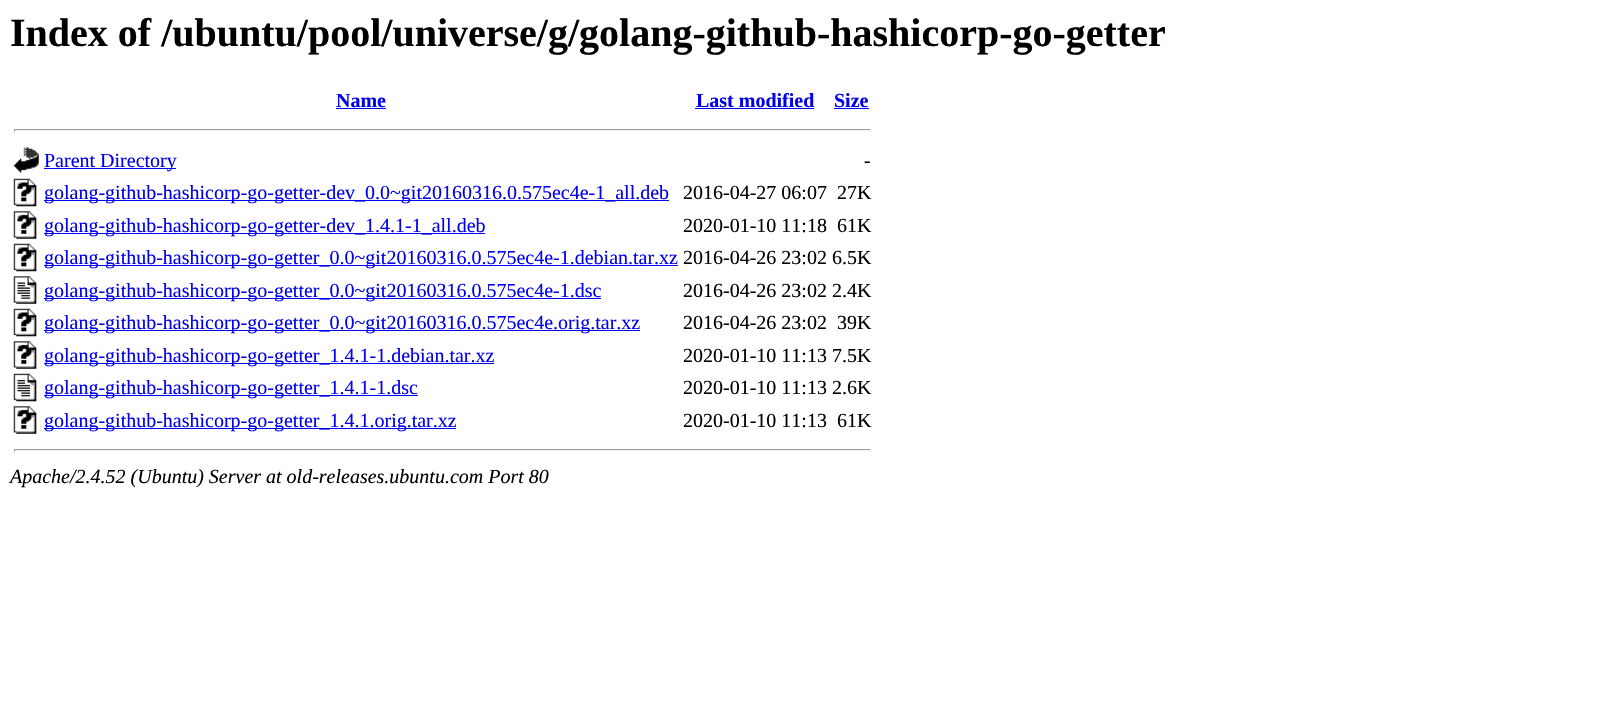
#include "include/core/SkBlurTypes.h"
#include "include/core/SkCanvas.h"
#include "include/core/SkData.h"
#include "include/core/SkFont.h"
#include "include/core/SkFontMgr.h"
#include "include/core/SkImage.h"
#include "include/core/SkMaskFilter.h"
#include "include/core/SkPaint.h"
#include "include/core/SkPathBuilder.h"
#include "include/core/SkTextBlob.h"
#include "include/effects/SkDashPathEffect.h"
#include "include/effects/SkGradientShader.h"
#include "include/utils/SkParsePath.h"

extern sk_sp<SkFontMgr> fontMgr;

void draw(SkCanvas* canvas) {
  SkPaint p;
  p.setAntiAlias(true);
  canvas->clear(SK_ColorWHITE);
  p.setColor(SkColorSetRGB(0, 0, 238));
  canvas->drawRect(SkRect::MakeLTRB(336, 108, 386, 109), p);
  canvas->drawRect(SkRect::MakeLTRB(695, 108, 814, 109), p);
  canvas->drawRect(SkRect::MakeLTRB(834, 108, 869, 109), p);
  p.setColor(SkColorSetRGB(159, 159, 159));
  canvas->drawRect(SkRect::MakeLTRB(14, 129, 871, 130), p);
  p.setColor(SkColorSetRGB(238, 238, 238));
  canvas->drawRect(SkRect::MakeLTRB(870, 129, 871, 132), p);
  canvas->drawRect(SkRect::MakeLTRB(14, 130, 871, 131), p);
  p.setColor(SkColorSetRGB(159, 159, 159));
  canvas->drawRect(SkRect::MakeLTRB(14, 129, 15, 132), p);
  canvas->drawImageRect(SkImages::DeferredFromEncodedData(SkData::MakeFromFileName("images/1.png")), SkRect::MakeLTRB(13, 147, 39, 173), SkSamplingOptions());
  p.setColor(SkColorSetRGB(0, 0, 238));
  canvas->drawRect(SkRect::MakeLTRB(44, 168, 176, 169), p);
  canvas->drawImageRect(SkImages::DeferredFromEncodedData(SkData::MakeFromFileName("images/2.png")), SkRect::MakeLTRB(13, 178, 37, 207), SkSamplingOptions());
  canvas->drawRect(SkRect::MakeLTRB(44, 200, 669, 201), p);
  canvas->drawImageRect(SkImages::DeferredFromEncodedData(SkData::MakeFromFileName("images/3.png")), SkRect::MakeLTRB(13, 211, 37, 239), SkSamplingOptions());
  canvas->drawRect(SkRect::MakeLTRB(44, 233, 485, 234), p);
  canvas->drawImageRect(SkImages::DeferredFromEncodedData(SkData::MakeFromFileName("images/2.png")), SkRect::MakeLTRB(13, 243, 37, 272), SkSamplingOptions());
  canvas->drawRect(SkRect::MakeLTRB(44, 265, 678, 266), p);
  canvas->drawImageRect(SkImages::DeferredFromEncodedData(SkData::MakeFromFileName("images/4.png")), SkRect::MakeLTRB(13, 276, 37, 304), SkSamplingOptions());
  canvas->drawRect(SkRect::MakeLTRB(44, 298, 601, 299), p);
  canvas->drawImageRect(SkImages::DeferredFromEncodedData(SkData::MakeFromFileName("images/2.png")), SkRect::MakeLTRB(13, 308, 37, 337), SkSamplingOptions());
  canvas->drawRect(SkRect::MakeLTRB(44, 330, 640, 331), p);
  canvas->drawImageRect(SkImages::DeferredFromEncodedData(SkData::MakeFromFileName("images/3.png")), SkRect::MakeLTRB(13, 341, 37, 369), SkSamplingOptions());
  canvas->drawRect(SkRect::MakeLTRB(44, 363, 494, 364), p);
  canvas->drawImageRect(SkImages::DeferredFromEncodedData(SkData::MakeFromFileName("images/5.png")), SkRect::MakeLTRB(13, 373, 37, 402), SkSamplingOptions());
  canvas->drawRect(SkRect::MakeLTRB(44, 395, 418, 396), p);
  canvas->drawImageRect(SkImages::DeferredFromEncodedData(SkData::MakeFromFileName("images/3.png")), SkRect::MakeLTRB(13, 406, 37, 434), SkSamplingOptions());
  canvas->drawRect(SkRect::MakeLTRB(44, 428, 456, 429), p);
  p.setColor(SkColorSetRGB(159, 159, 159));
  canvas->drawRect(SkRect::MakeLTRB(14, 449, 871, 450), p);
  p.setColor(SkColorSetRGB(238, 238, 238));
  canvas->drawRect(SkRect::MakeLTRB(870, 449, 871, 452), p);
  canvas->drawRect(SkRect::MakeLTRB(14, 450, 871, 451), p);
  p.setColor(SkColorSetRGB(159, 159, 159));
  canvas->drawRect(SkRect::MakeLTRB(14, 449, 15, 452), p);
  SkFont font1(fontMgr->matchFamilyStyle("Liberation Serif", SkFontStyle::Bold()), 40);
  font1.setSubpixel(true);
  p.setColor(SK_ColorBLACK);
  canvas->drawString("Index of /ubuntu/pool/universe/g/golang-github-hashicorp-go-getter", 10, 46, font1, p);
  SkFont font2(fontMgr->matchFamilyStyle("Liberation Serif", SkFontStyle::Bold()), 20);
  font2.setSubpixel(true);
  p.setColor(SkColorSetRGB(0, 0, 238));
  canvas->drawString("Name", 336, 107, font2, p);
  canvas->drawString("Last modified", 696, 107, font2, p);
  canvas->drawString("Size", 834, 107, font2, p);
  SkFont font3(fontMgr->matchFamilyStyle("Liberation Serif", SkFontStyle::Normal()), 20);
  font3.setSubpixel(true);
  canvas->drawString("Parent Directory", 44, 167, font3, p);
  p.setColor(SK_ColorBLACK);
  canvas->drawString("-", 864, 167, font3, p);
  p.setColor(SkColorSetRGB(0, 0, 238));
  canvas->drawString("golang-github-hashicorp-go-getter-dev_0.0~git20160316.0.575ec4e-1_all.deb", 44, 199, font3, p);
  p.setColor(SK_ColorBLACK);
  canvas->drawString("2016-04-27 06:07", 683, 199, font3, p);
  canvas->drawString("27K", 837, 199, font3, p);
  p.setColor(SkColorSetRGB(0, 0, 238));
  canvas->drawString("golang-github-hashicorp-go-getter-dev_1.4.1-1_all.deb", 44, 232, font3, p);
  p.setColor(SK_ColorBLACK);
  canvas->drawString("2020-01-10 11:18", 683, 232, font3, p);
  canvas->drawString("61K", 837, 232, font3, p);
  p.setColor(SkColorSetRGB(0, 0, 238));
  canvas->drawString("golang-github-hashicorp-go-getter_0.0~git20160316.0.575ec4e-1.debian.tar.xz", 44, 264, font3, p);
  p.setColor(SK_ColorBLACK);
  canvas->drawString("2016-04-26 23:02 6.5K", 683, 264, font3, p);
  p.setColor(SkColorSetRGB(0, 0, 238));
  canvas->drawString("golang-github-hashicorp-go-getter_0.0~git20160316.0.575ec4e-1.dsc", 44, 297, font3, p);
  p.setColor(SK_ColorBLACK);
  canvas->drawString("2016-04-26 23:02 2.4K", 683, 297, font3, p);
  p.setColor(SkColorSetRGB(0, 0, 238));
  canvas->drawString("golang-github-hashicorp-go-getter_0.0~git20160316.0.575ec4e.orig.tar.xz", 44, 329, font3, p);
  p.setColor(SK_ColorBLACK);
  canvas->drawString("2016-04-26 23:02", 683, 329, font3, p);
  canvas->drawString("39K", 837, 329, font3, p);
  p.setColor(SkColorSetRGB(0, 0, 238));
  canvas->drawString("golang-github-hashicorp-go-getter_1.4.1-1.debian.tar.xz", 44, 362, font3, p);
  p.setColor(SK_ColorBLACK);
  canvas->drawString("2020-01-10 11:13 7.5K", 683, 362, font3, p);
  p.setColor(SkColorSetRGB(0, 0, 238));
  canvas->drawString("golang-github-hashicorp-go-getter_1.4.1-1.dsc", 44, 394, font3, p);
  p.setColor(SK_ColorBLACK);
  canvas->drawString("2020-01-10 11:13 2.6K", 683, 394, font3, p);
  p.setColor(SkColorSetRGB(0, 0, 238));
  canvas->drawString("golang-github-hashicorp-go-getter_1.4.1.orig.tar.xz", 44, 427, font3, p);
  p.setColor(SK_ColorBLACK);
  canvas->drawString("2020-01-10 11:13", 683, 427, font3, p);
  canvas->drawString("61K", 837, 427, font3, p);
  SkFont font4(fontMgr->matchFamilyStyle("Liberation Serif", SkFontStyle::Italic()), 20);
  font4.setSubpixel(true);
  canvas->drawString("Apache/2.4.52 (Ubuntu) Server at old-releases.ubuntu.com Port 80", 10, 483, font4, p);
}
